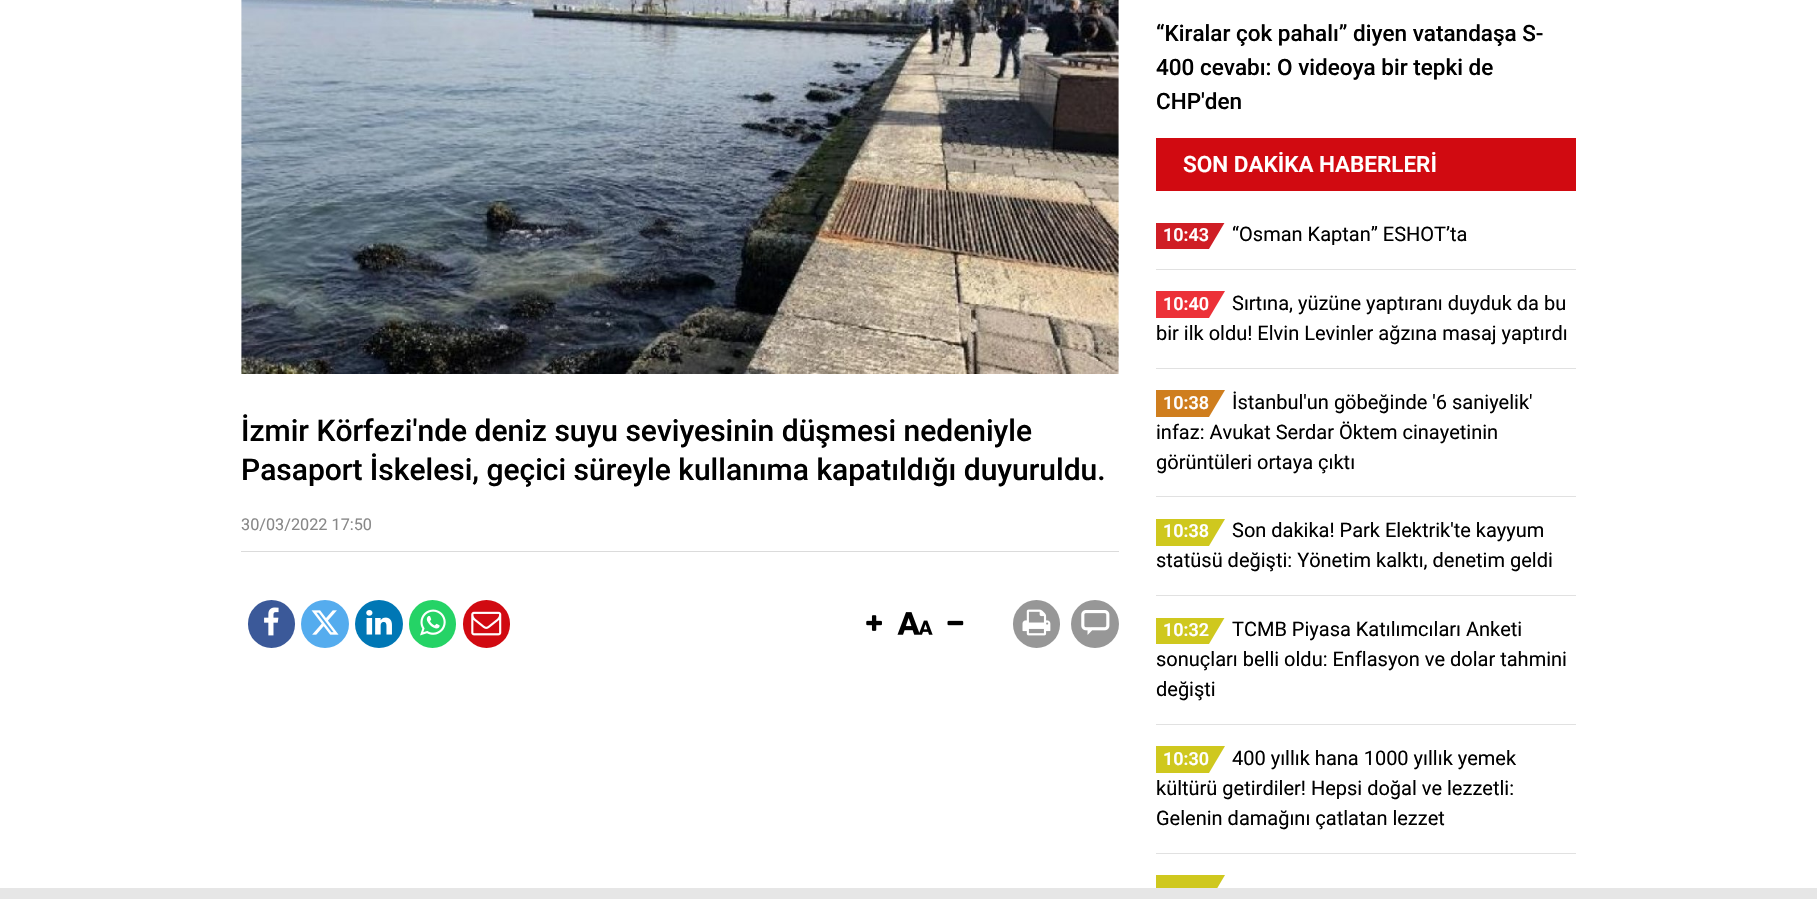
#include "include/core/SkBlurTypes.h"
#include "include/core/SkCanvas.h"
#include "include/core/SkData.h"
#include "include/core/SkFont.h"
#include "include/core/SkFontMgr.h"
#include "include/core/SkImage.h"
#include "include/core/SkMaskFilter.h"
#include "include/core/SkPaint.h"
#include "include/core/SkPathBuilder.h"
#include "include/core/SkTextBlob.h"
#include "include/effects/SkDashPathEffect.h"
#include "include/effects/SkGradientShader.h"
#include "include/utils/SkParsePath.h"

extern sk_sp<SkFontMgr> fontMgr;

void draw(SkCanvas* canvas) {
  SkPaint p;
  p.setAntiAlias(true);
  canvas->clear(SK_ColorWHITE);
  p.setColor(SkColorSetRGB(248, 248, 248));
  canvas->drawRect(SkRect::MakeLTRB(241, 0, 1119, 374), p);
  canvas->drawImageRect(SkImages::DeferredFromEncodedData(SkData::MakeFromFileName("images/1.png")), SkRect::MakeLTRB(241, 0, 1119, 374), SkSamplingOptions());
  p.setColor(SkColorSetRGB(219, 219, 219));
  canvas->drawRect(SkRect::MakeLTRB(241, 551, 1119, 552), p);
  p.setColor(SkColorSetRGB(59, 89, 153));
  canvas->drawRoundRect(SkRect::MakeLTRB(248, 600, 295, 648), 23.5f, 23.5f, p);
  canvas->drawImageRect(SkImages::DeferredFromEncodedData(SkData::MakeFromFileName("images/2.png")), SkRect::MakeLTRB(264, 607, 279, 636), SkSamplingOptions());
  p.setColor(SkColorSetRGB(85, 172, 238));
  canvas->drawCircle(325, 624, 24, p);
  canvas->drawImageRect(SkImages::DeferredFromEncodedData(SkData::MakeFromFileName("images/3.png")), SkRect::MakeLTRB(311, 610, 339, 635), SkSamplingOptions());
  p.setColor(SkColorSetRGB(0, 119, 181));
  canvas->drawCircle(379, 624, 24, p);
  canvas->drawImageRect(SkImages::DeferredFromEncodedData(SkData::MakeFromFileName("images/4.png")), SkRect::MakeLTRB(366, 610, 392, 635), SkSamplingOptions());
  p.setColor(SkColorSetRGB(37, 211, 102));
  canvas->drawRoundRect(SkRect::MakeLTRB(409, 600, 456, 648), 23.5f, 23.5f, p);
  canvas->drawImageRect(SkImages::DeferredFromEncodedData(SkData::MakeFromFileName("images/5.png")), SkRect::MakeLTRB(420, 609, 446, 636), SkSamplingOptions());
  p.setColor(SkColorSetRGB(209, 10, 17));
  canvas->drawRoundRect(SkRect::MakeLTRB(463, 600, 510, 648), 23.5f, 23.5f, p);
  canvas->drawImageRect(SkImages::DeferredFromEncodedData(SkData::MakeFromFileName("images/6.png")), SkRect::MakeLTRB(471, 611, 502, 636), SkSamplingOptions());
  canvas->drawImageRect(SkImages::DeferredFromEncodedData(SkData::MakeFromFileName("images/7.png")), SkRect::MakeLTRB(866, 615, 882, 631), SkSamplingOptions());
  canvas->drawImageRect(SkImages::DeferredFromEncodedData(SkData::MakeFromFileName("images/8.png")), SkRect::MakeLTRB(897, 612, 933, 635), SkSamplingOptions());
  canvas->drawImageRect(SkImages::DeferredFromEncodedData(SkData::MakeFromFileName("images/9.png")), SkRect::MakeLTRB(947, 620, 964, 626), SkSamplingOptions());
  p.setColor(SkColorSetRGB(151, 151, 151));
  canvas->drawRoundRect(SkRect::MakeLTRB(1013, 600, 1060, 648), 23.5f, 23.5f, p);
  canvas->drawImageRect(SkImages::DeferredFromEncodedData(SkData::MakeFromFileName("images/10.png")), SkRect::MakeLTRB(1022, 609, 1051, 636), SkSamplingOptions());
  canvas->drawCircle(1095, 624, 24, p);
  canvas->drawImageRect(SkImages::DeferredFromEncodedData(SkData::MakeFromFileName("images/11.png")), SkRect::MakeLTRB(1081, 610, 1110, 635), SkSamplingOptions());
  p.setColor(SkColorSetRGB(209, 10, 17));
  canvas->drawRect(SkRect::MakeLTRB(1156, 138, 1576, 191), p);
  p.setColor(SkColorSetRGB(225, 225, 225));
  canvas->drawRect(SkRect::MakeLTRB(1156, 269, 1576, 270), p);
  canvas->save();
  canvas->clipRect(SkRect::MakeLTRB(1156, 223, 1228, 250));
  p.setColor(SkColorSetRGB(207, 30, 37));
  canvas->drawPath(SkPathBuilder().moveTo(1154, 222).lineTo(1225, 222).lineTo(1209, 249).lineTo(1138, 249).close().detach(), p);
  canvas->restore();
  p.setColor(SkColorSetRGB(225, 225, 225));
  canvas->drawRect(SkRect::MakeLTRB(1156, 368, 1576, 369), p);
  canvas->save();
  canvas->clipRect(SkRect::MakeLTRB(1156, 291, 1228, 319));
  p.setColor(SkColorSetRGB(236, 49, 56));
  canvas->drawPath(SkPathBuilder().moveTo(1154, 291).lineTo(1225, 291).lineTo(1209, 318).lineTo(1138, 318).close().detach(), p);
  canvas->restore();
  p.setColor(SkColorSetRGB(225, 225, 225));
  canvas->drawRect(SkRect::MakeLTRB(1156, 496, 1576, 497), p);
  canvas->save();
  canvas->clipRect(SkRect::MakeLTRB(1156, 390, 1228, 418));
  p.setColor(SkColorSetRGB(207, 126, 30));
  canvas->drawPath(SkPathBuilder().moveTo(1154, 390).lineTo(1225, 390).lineTo(1209, 417).lineTo(1138, 417).close().detach(), p);
  canvas->restore();
  p.setColor(SkColorSetRGB(225, 225, 225));
  canvas->drawRect(SkRect::MakeLTRB(1156, 595, 1576, 596), p);
  canvas->save();
  canvas->clipRect(SkRect::MakeLTRB(1156, 519, 1228, 546));
  p.setColor(SkColorSetRGB(207, 200, 30));
  canvas->drawPath(SkPathBuilder().moveTo(1154, 519).lineTo(1225, 519).lineTo(1209, 546).lineTo(1138, 546).close().detach(), p);
  canvas->restore();
  p.setColor(SkColorSetRGB(225, 225, 225));
  canvas->drawRect(SkRect::MakeLTRB(1156, 724, 1576, 725), p);
  canvas->save();
  canvas->clipRect(SkRect::MakeLTRB(1156, 618, 1228, 645));
  p.setColor(SkColorSetRGB(207, 200, 30));
  canvas->drawPath(SkPathBuilder().moveTo(1154, 617).lineTo(1225, 617).lineTo(1209, 644).lineTo(1138, 644).close().detach(), p);
  canvas->restore();
  p.setColor(SkColorSetRGB(225, 225, 225));
  canvas->drawRect(SkRect::MakeLTRB(1156, 853, 1576, 854), p);
  canvas->save();
  canvas->clipRect(SkRect::MakeLTRB(1156, 746, 1228, 774));
  p.setColor(SkColorSetRGB(207, 200, 30));
  canvas->drawPath(SkPathBuilder().moveTo(1154, 746).lineTo(1225, 746).lineTo(1209, 773).lineTo(1138, 773).close().detach(), p);
  canvas->restore();
  canvas->save();
  canvas->clipRect(SkRect::MakeLTRB(1156, 875, 1228, 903));
  canvas->drawPath(SkPathBuilder().moveTo(1154, 875).lineTo(1225, 875).lineTo(1209, 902).lineTo(1138, 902).close().detach(), p);
  canvas->restore();
  p.setColor(SkColorSetRGB(230, 230, 230));
  canvas->drawRect(SkRect::MakeLTRB(0, 888, 1817, 899), p);
  SkFont font1(fontMgr->matchFamilyStyle("Roboto", SkFontStyle(500, SkFontStyle::kNormal_Width, SkFontStyle::kUpright_Slant)), 30);
  font1.setSubpixel(true);
  p.setColor(SK_ColorBLACK);
  canvas->drawString("İzmir Körfezi'nde deniz suyu seviyesinin düşmesi nedeniyle", 241, 441, font1, p);
  canvas->drawString("Pasaport İskelesi, geçici süreyle kullanıma kapatıldığı duyuruldu.", 241, 480, font1, p);
  SkFont font2(fontMgr->matchFamilyStyle("Roboto", SkFontStyle::Normal()), 16.25f);
  font2.setSubpixel(true);
  p.setColor(SkColorSetRGB(136, 136, 136));
  canvas->drawString("30/03/2022 17:50", 241, 530, font2, p);
  SkFont font3(fontMgr->matchFamilyStyle("Roboto", SkFontStyle(500, SkFontStyle::kNormal_Width, SkFontStyle::kUpright_Slant)), 22.5f);
  font3.setSubpixel(true);
  p.setColor(SK_ColorBLACK);
  canvas->drawString("“Kiralar çok pahalı” diyen vatandaşa S-", 1156, 41, font3, p);
  canvas->drawString("400 cevabı: O videoya bir tepki de", 1156, 75, font3, p);
  canvas->drawString("CHP'den", 1156, 109, font3, p);
  SkFont font4(fontMgr->matchFamilyStyle("Roboto", SkFontStyle(600, SkFontStyle::kNormal_Width, SkFontStyle::kUpright_Slant)), 22.5f);
  font4.setSubpixel(true);
  p.setColor(SK_ColorWHITE);
  canvas->drawString("SON DAKİKA HABERLERİ", 1183, 172, font4, p);
  SkFont font5(fontMgr->matchFamilyStyle("Roboto", SkFontStyle(600, SkFontStyle::kNormal_Width, SkFontStyle::kUpright_Slant)), 18);
  font5.setSubpixel(true);
  canvas->drawString("10:43", 1163, 241, font5, p);
  SkFont font6(fontMgr->matchFamilyStyle("Roboto", SkFontStyle::Normal()), 20);
  font6.setSubpixel(true);
  p.setColor(SK_ColorBLACK);
  canvas->drawString("“Osman Kaptan” ESHOT’ta", 1232, 241, font6, p);
  p.setColor(SK_ColorWHITE);
  canvas->drawString("10:40", 1163, 310, font5, p);
  p.setColor(SK_ColorBLACK);
  canvas->drawString("Sırtına, yüzüne yaptıranı duyduk da bu", 1232, 310, font6, p);
  canvas->drawString("bir ilk oldu! Elvin Levinler ağzına masaj yaptırdı", 1156, 340, font6, p);
  p.setColor(SK_ColorWHITE);
  canvas->drawString("10:38", 1163, 409, font5, p);
  p.setColor(SK_ColorBLACK);
  canvas->drawString("İstanbul'un göbeğinde '6 saniyelik'", 1232, 409, font6, p);
  canvas->drawString("infaz: Avukat Serdar Öktem cinayetinin", 1156, 439, font6, p);
  canvas->drawString("görüntüleri ortaya çıktı", 1156, 469, font6, p);
  p.setColor(SK_ColorWHITE);
  canvas->drawString("10:38", 1163, 537, font5, p);
  p.setColor(SK_ColorBLACK);
  canvas->drawString("Son dakika! Park Elektrik'te kayyum", 1232, 537, font6, p);
  canvas->drawString("statüsü değişti: Yönetim kalktı, denetim geldi", 1156, 567, font6, p);
  p.setColor(SK_ColorWHITE);
  canvas->drawString("10:32", 1163, 636, font5, p);
  p.setColor(SK_ColorBLACK);
  canvas->drawString("TCMB Piyasa Katılımcıları Anketi", 1232, 636, font6, p);
  canvas->drawString("sonuçları belli oldu: Enflasyon ve dolar tahmini", 1156, 666, font6, p);
  canvas->drawString("değişti", 1156, 696, font6, p);
  p.setColor(SK_ColorWHITE);
  canvas->drawString("10:30", 1163, 765, font5, p);
  p.setColor(SK_ColorBLACK);
  canvas->drawString("400 yıllık hana 1000 yıllık yemek", 1232, 765, font6, p);
  canvas->drawString("kültürü getirdiler! Hepsi doğal ve lezzetli:", 1156, 795, font6, p);
  canvas->drawString("Gelenin damağını çatlatan lezzet", 1156, 825, font6, p);
}
